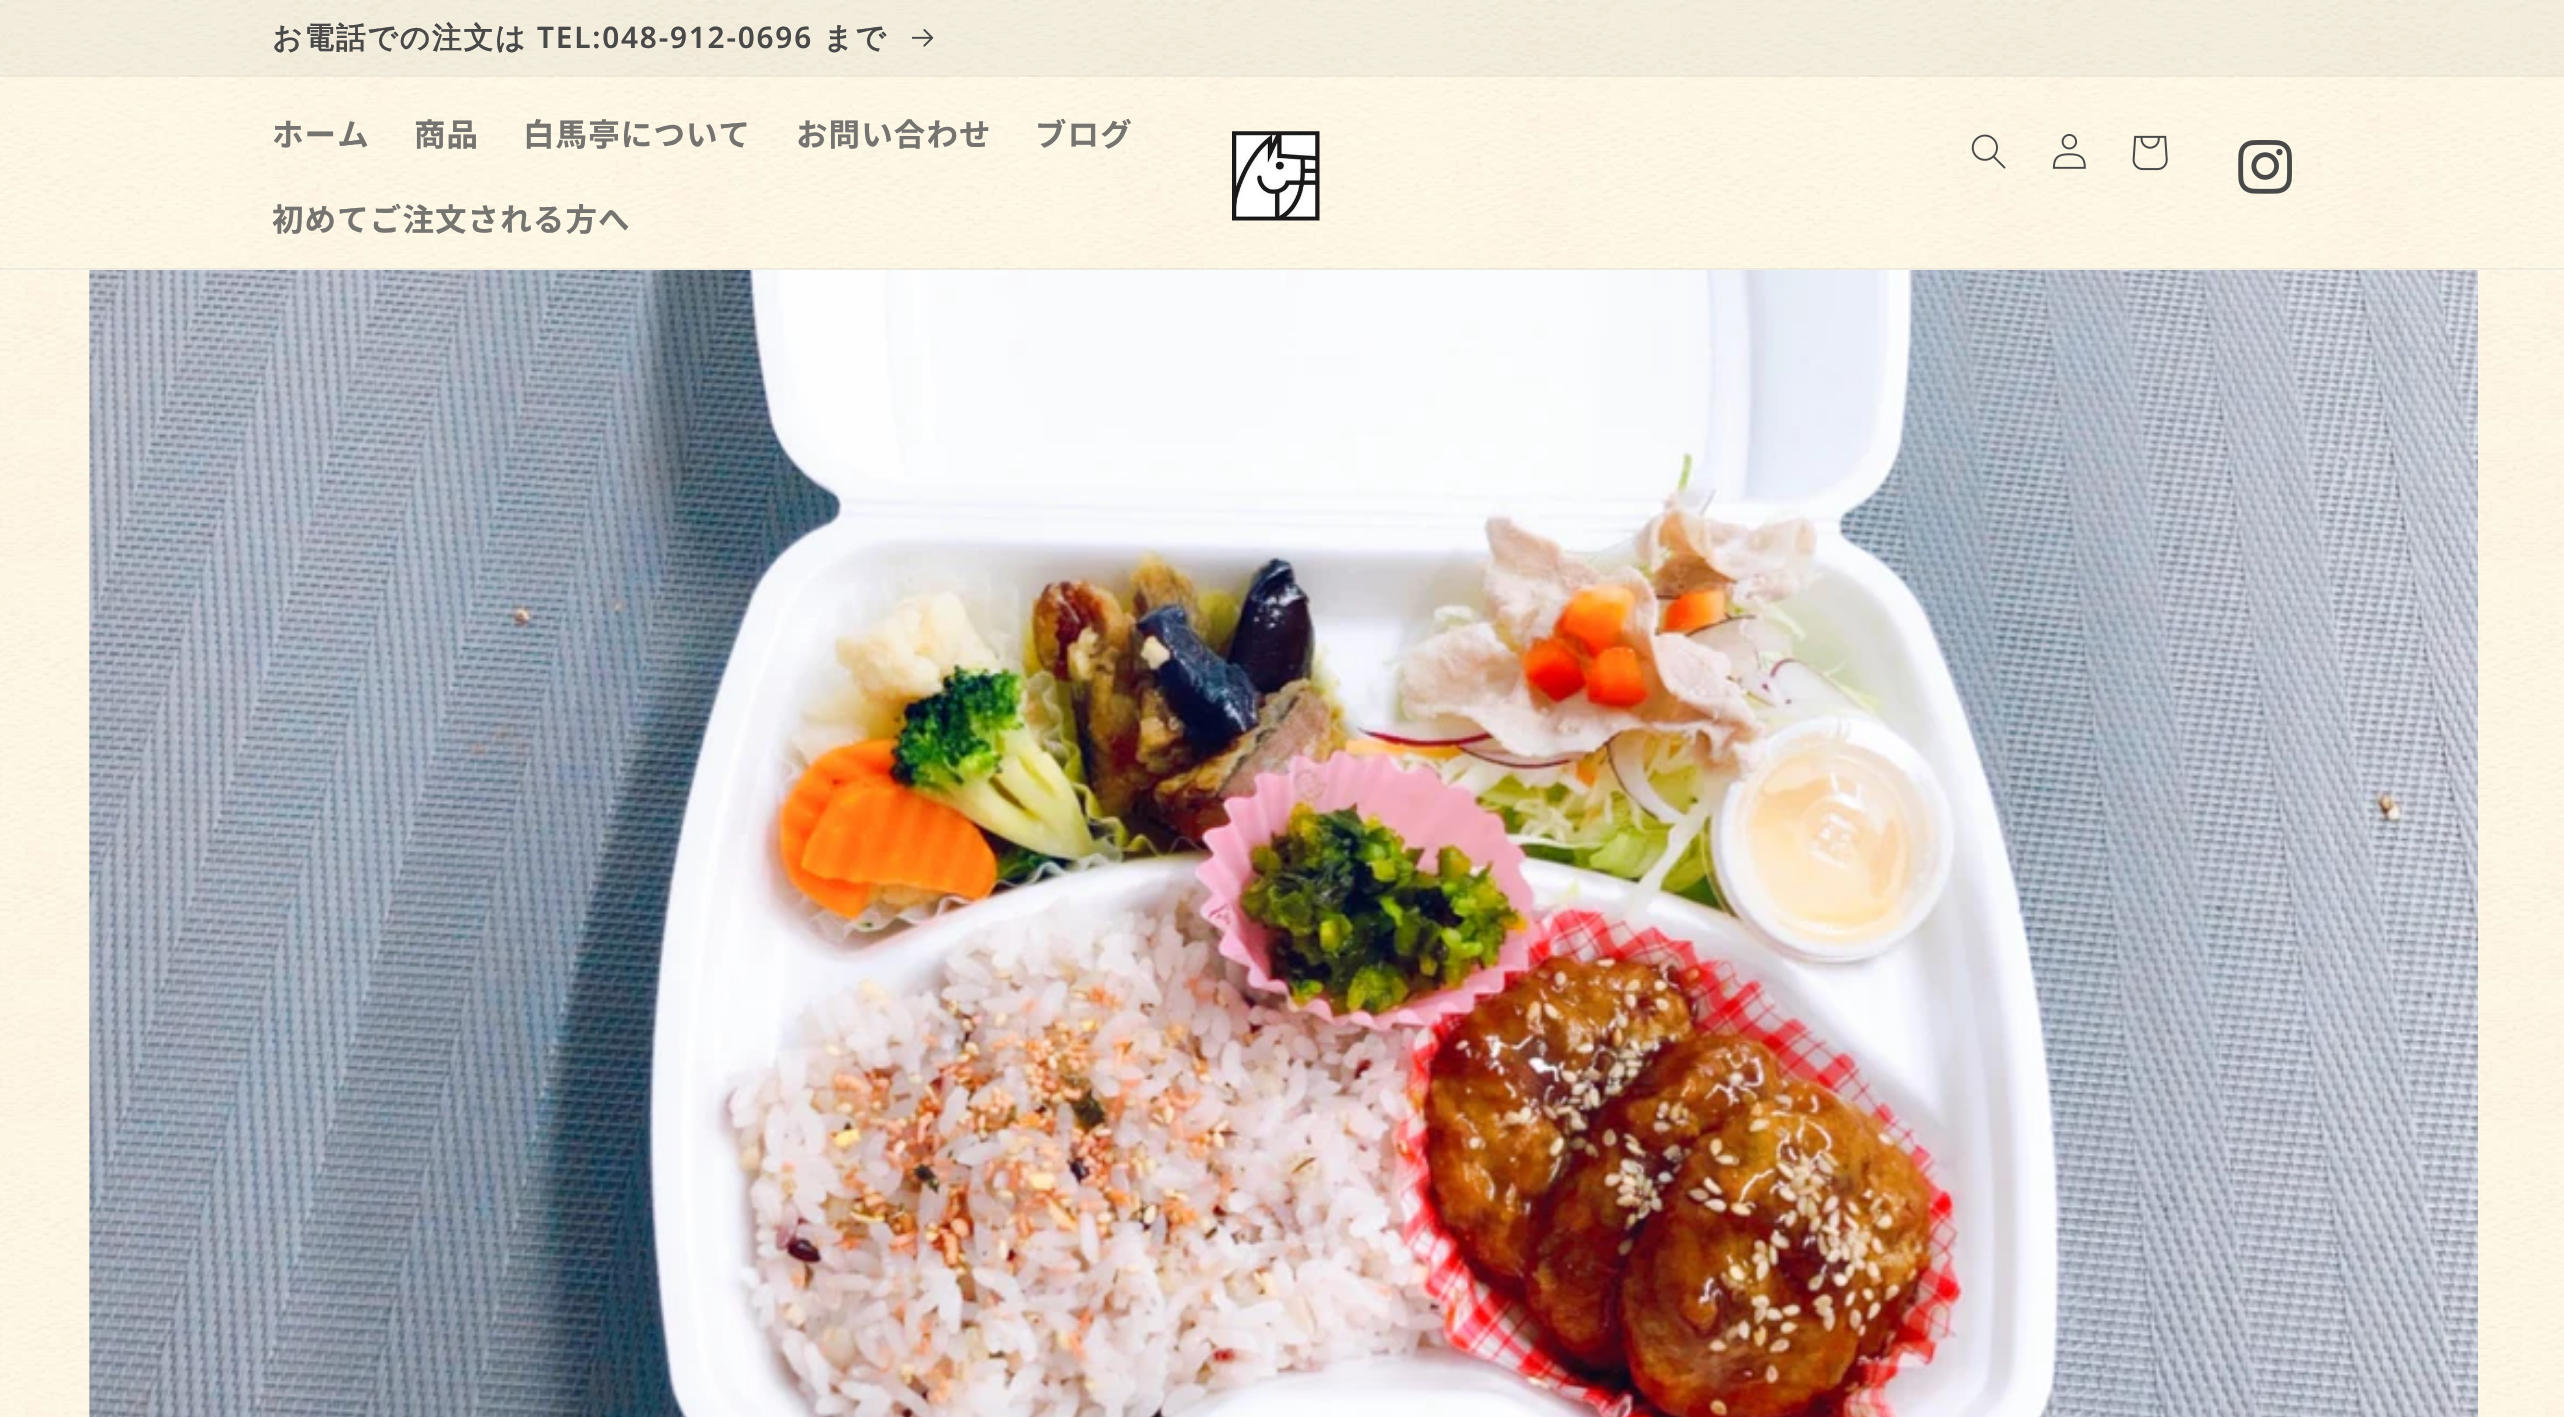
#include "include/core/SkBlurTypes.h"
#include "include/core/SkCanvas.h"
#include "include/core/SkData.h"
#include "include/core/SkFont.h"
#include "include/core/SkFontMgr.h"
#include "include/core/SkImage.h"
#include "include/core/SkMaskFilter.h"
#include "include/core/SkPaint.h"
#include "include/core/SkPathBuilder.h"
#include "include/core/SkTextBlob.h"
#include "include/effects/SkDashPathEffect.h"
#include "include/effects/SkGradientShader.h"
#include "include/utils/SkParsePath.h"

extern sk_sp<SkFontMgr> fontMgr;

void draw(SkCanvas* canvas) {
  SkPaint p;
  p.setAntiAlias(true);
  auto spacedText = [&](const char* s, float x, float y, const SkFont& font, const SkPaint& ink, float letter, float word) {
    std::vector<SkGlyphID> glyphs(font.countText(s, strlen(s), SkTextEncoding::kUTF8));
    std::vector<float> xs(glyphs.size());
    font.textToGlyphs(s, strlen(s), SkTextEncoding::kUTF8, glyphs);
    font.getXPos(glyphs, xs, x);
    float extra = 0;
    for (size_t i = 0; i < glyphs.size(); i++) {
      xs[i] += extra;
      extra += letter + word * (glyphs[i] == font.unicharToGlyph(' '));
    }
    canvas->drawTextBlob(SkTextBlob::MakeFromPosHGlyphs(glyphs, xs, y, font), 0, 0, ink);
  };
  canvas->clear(SK_ColorWHITE);
  canvas->drawImageRect(SkImages::DeferredFromEncodedData(SkData::MakeFromFileName("images/1.png")), SkRect::MakeLTRB(0, 270, 2564, 1417), SkSamplingOptions());
  canvas->drawImageRect(SkImages::DeferredFromEncodedData(SkData::MakeFromFileName("images/2.png")), SkRect::MakeLTRB(0, 0, 2564, 77), SkSamplingOptions());
  p.setColor(SkColorSetARGB(20, 73, 73, 73));
  canvas->drawRect(SkRect::MakeLTRB(0, 75, 2564, 77), p);
  canvas->drawImageRect(SkImages::DeferredFromEncodedData(SkData::MakeFromFileName("images/3.png")), SkRect::MakeLTRB(912, 29, 934, 47), SkSamplingOptions());
  canvas->drawImageRect(SkImages::DeferredFromEncodedData(SkData::MakeFromFileName("images/4.png")), SkRect::MakeLTRB(0, 77, 2564, 270), SkSamplingOptions());
  canvas->drawRect(SkRect::MakeLTRB(0, 268, 2564, 270), p);
  canvas->drawImageRect(SkImages::DeferredFromEncodedData(SkData::MakeFromFileName("images/5.png")), SkRect::MakeLTRB(1232, 131, 1320, 221), SkSamplingOptions());
  canvas->drawImageRect(SkImages::DeferredFromEncodedData(SkData::MakeFromFileName("images/6.png")), SkRect::MakeLTRB(1971, 134, 2006, 169), SkSamplingOptions());
  canvas->drawImageRect(SkImages::DeferredFromEncodedData(SkData::MakeFromFileName("images/7.png")), SkRect::MakeLTRB(2052, 134, 2086, 169), SkSamplingOptions());
  canvas->drawImageRect(SkImages::DeferredFromEncodedData(SkData::MakeFromFileName("images/8.png")), SkRect::MakeLTRB(2132, 135, 2168, 171), SkSamplingOptions());
  canvas->drawImageRect(SkImages::DeferredFromEncodedData(SkData::MakeFromFileName("images/9.png")), SkRect::MakeLTRB(2238, 140, 2292, 194), SkSamplingOptions());
  p.setColor(SkColorSetARGB(26, 73, 73, 73));
  canvas->drawRect(SkRect::MakeLTRB(89, 270, 90, 1417), p);
  canvas->drawImageRect(SkImages::DeferredFromEncodedData(SkData::MakeFromFileName("images/10.png")), SkRect::MakeLTRB(89, 270, 2478, 1417), SkSamplingOptions());
  SkFont font1(fontMgr->matchFamilyStyle("WenQuanYi Zen Hei", SkFontStyle::Bold()), 29.75f);
  font1.setSubpixel(true);
  p.setColor(SkColorSetRGB(73, 73, 73));
  spacedText("お電話での注文は", 272, 48, font1, p, 1.8f, 0);
  SkFont font2(fontMgr->matchFamilyStyle("Noto Sans", SkFontStyle(600, SkFontStyle::kNormal_Width, SkFontStyle::kUpright_Slant)), 29.75f);
  font2.setSubpixel(true);
  spacedText("TEL:048-912-0696", 537, 48, font2, p, 1.8f, 0);
  spacedText("まで", 823, 48, font1, p, 1.8f, 0);
  SkFont font3(fontMgr->matchFamilyStyle("Noto Sans JP", SkFontStyle(100, SkFontStyle::kNormal_Width, SkFontStyle::kUpright_Slant)), 31.5f);
  font3.setSubpixel(true);
  p.setColor(SkColorSetRGB(118, 116, 112));
  spacedText("ホーム", 272, 146, font3, p, 1.1f, 0);
  spacedText("商品", 414, 146, font3, p, 1.1f, 0);
  spacedText("白馬亭について", 523, 146, font3, p, 1.1f, 0);
  spacedText("お問い合わせ", 796, 146, font3, p, 1.1f, 0);
  spacedText("ブログ", 1035, 146, font3, p, 1.1f, 0);
  spacedText("初めてご注文される方へ", 272, 231, font3, p, 1.1f, 0);
}
